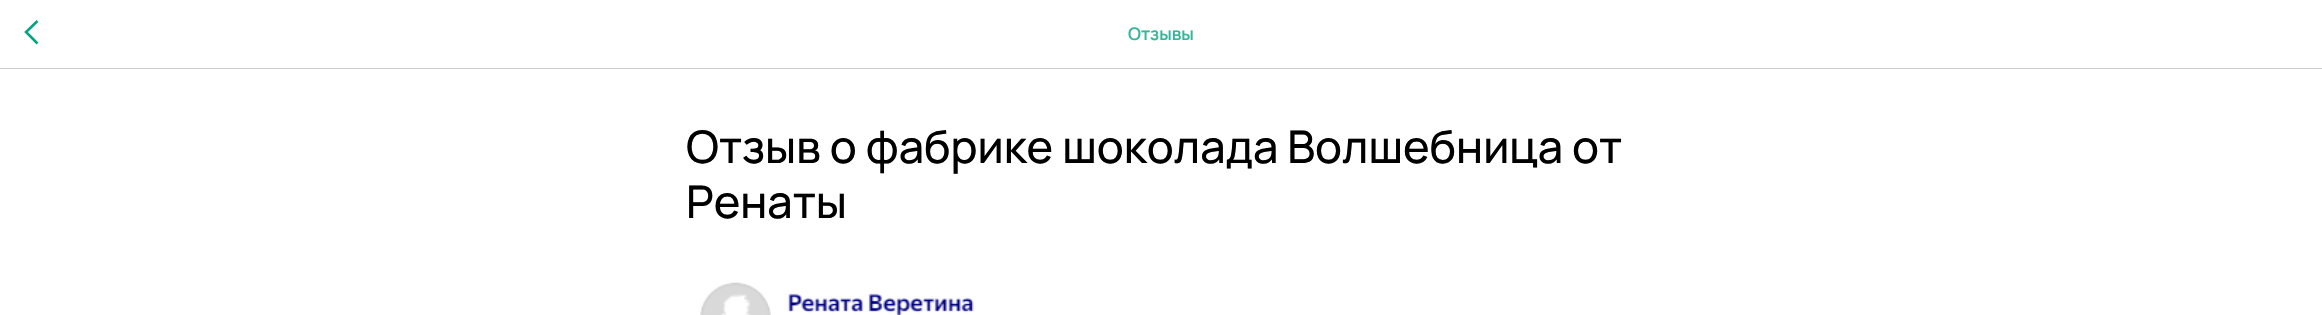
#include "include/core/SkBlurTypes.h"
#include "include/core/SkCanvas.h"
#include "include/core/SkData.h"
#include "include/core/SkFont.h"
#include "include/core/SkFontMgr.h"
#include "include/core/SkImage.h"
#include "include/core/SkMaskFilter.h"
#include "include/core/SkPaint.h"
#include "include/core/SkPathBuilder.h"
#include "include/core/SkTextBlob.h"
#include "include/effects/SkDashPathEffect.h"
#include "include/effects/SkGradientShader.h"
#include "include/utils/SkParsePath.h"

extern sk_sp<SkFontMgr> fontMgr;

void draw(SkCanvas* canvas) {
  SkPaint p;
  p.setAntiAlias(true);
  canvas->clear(SK_ColorWHITE);
  p.setColor(SkColorSetRGB(204, 204, 204));
  canvas->drawRect(SkRect::MakeLTRB(0, 68, 2322, 69), p);
  p.setStyle(SkPaint::kStroke_Style);
  p.setStrokeWidth(2.5f);
  p.setColor(SkColorSetRGB(0, 164, 128));
  canvas->drawPath(SkPathBuilder().moveTo(37.5f, 43.5f).lineTo(26, 32).lineTo(37.5f, 21).detach(), p);
  canvas->drawImageRect(SkImages::DeferredFromEncodedData(SkData::MakeFromFileName("images/1.png")), SkRect::MakeLTRB(700, 282, 974, 315), SkSamplingOptions());
  SkFont font1(fontMgr->matchFamilyStyle("Manrope", SkFontStyle(600, SkFontStyle::kNormal_Width, SkFontStyle::kUpright_Slant)), 17.5f);
  font1.setSubpixel(true);
  p.setStyle(SkPaint::kFill_Style);
  p.setColor(SkColorSetRGB(51, 182, 153));
  canvas->drawString("Отзывы", 1128, 40, font1, p);
  SkFont font2(fontMgr->matchFamilyStyle("Manrope", SkFontStyle(500, SkFontStyle::kNormal_Width, SkFontStyle::kUpright_Slant)), 45);
  font2.setSubpixel(true);
  p.setColor(SK_ColorBLACK);
  canvas->drawString("Отзыв о фабрике шоколада Волшебница от", 686, 163, font2, p);
  canvas->drawString("Ренаты", 686, 218, font2, p);
}
